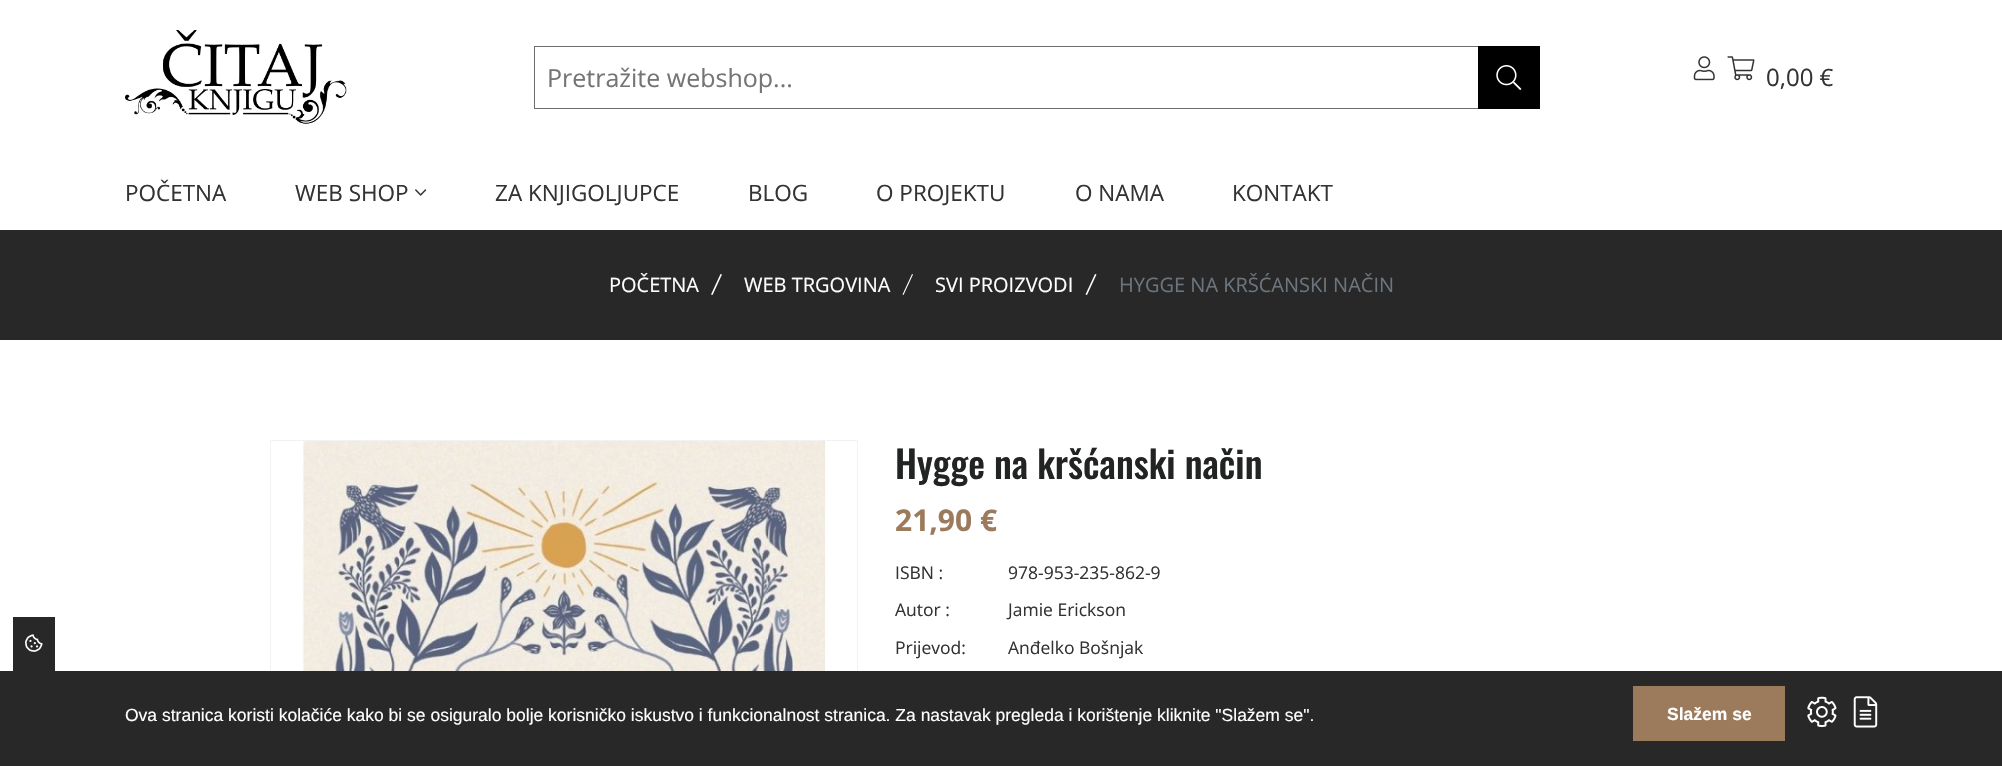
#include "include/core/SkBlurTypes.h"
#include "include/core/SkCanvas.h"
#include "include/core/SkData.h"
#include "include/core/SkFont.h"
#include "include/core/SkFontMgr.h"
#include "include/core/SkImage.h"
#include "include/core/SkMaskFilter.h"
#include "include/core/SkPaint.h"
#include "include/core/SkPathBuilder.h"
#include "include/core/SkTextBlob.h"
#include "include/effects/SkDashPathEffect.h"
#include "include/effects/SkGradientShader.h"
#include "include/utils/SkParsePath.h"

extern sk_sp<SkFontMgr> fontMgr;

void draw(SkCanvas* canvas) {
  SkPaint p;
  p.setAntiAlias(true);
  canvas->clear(SK_ColorWHITE);
  canvas->drawImageRect(SkImages::DeferredFromEncodedData(SkData::MakeFromFileName("images/1.png")), SkRect::MakeLTRB(125, 30, 347, 124), SkSamplingOptions());
  p.setStyle(SkPaint::kStroke_Style);
  p.setStrokeWidth(1);
  p.setColor(SkColorSetRGB(110, 110, 110));
  canvas->drawRect(SkRect::MakeLTRB(534.5f, 46.5f, 1539.5f, 108.5f), p);
  p.setStyle(SkPaint::kFill_Style);
  p.setColor(SK_ColorBLACK);
  canvas->drawRect(SkRect::MakeLTRB(1478, 46, 1540, 109), p);
  canvas->drawImageRect(SkImages::DeferredFromEncodedData(SkData::MakeFromFileName("images/2.png")), SkRect::MakeLTRB(1496, 65, 1522, 90), SkSamplingOptions());
  canvas->drawImageRect(SkImages::DeferredFromEncodedData(SkData::MakeFromFileName("images/3.png")), SkRect::MakeLTRB(1693, 56, 1715, 81), SkSamplingOptions());
  canvas->drawImageRect(SkImages::DeferredFromEncodedData(SkData::MakeFromFileName("images/4.png")), SkRect::MakeLTRB(1727, 56, 1755, 81), SkSamplingOptions());
  canvas->drawImageRect(SkImages::DeferredFromEncodedData(SkData::MakeFromFileName("images/5.png")), SkRect::MakeLTRB(415, 189, 427, 196), SkSamplingOptions());
  p.setColor(SkColorSetRGB(40, 40, 40));
  canvas->drawRect(SkRect::MakeLTRB(0, 230, 2002, 340), p);
  p.setColor(SK_ColorWHITE);
  canvas->drawPath(SkPathBuilder().moveTo(722, 274.5f).lineTo(712.5f, 295).lineTo(711, 294.5f).lineTo(720.5f, 274).close().detach(), p);
  canvas->drawPath(SkPathBuilder().moveTo(913, 274.5f).lineTo(903.5f, 295).lineTo(902.5f, 294.5f).lineTo(912, 274).close().detach(), p);
  canvas->drawPath(SkPathBuilder().moveTo(1096.5f, 274.5f).lineTo(1087, 295).lineTo(1085.5f, 294.5f).lineTo(1095, 274).close().detach(), p);
  p.setStyle(SkPaint::kStroke_Style);
  p.setColor(SkColorSetRGB(242, 242, 242));
  canvas->drawRect(SkRect::MakeLTRB(270.5f, 440.5f, 857.5f, 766.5f), p);
  canvas->drawImageRect(SkImages::DeferredFromEncodedData(SkData::MakeFromFileName("images/6.png")), SkRect::MakeLTRB(302, 441, 827, 671), SkSamplingOptions());
  p.setStyle(SkPaint::kFill_Style);
  p.setColor(SkColorSetRGB(40, 40, 40));
  canvas->drawRect(SkRect::MakeLTRB(0, 671, 2002, 766), p);
  canvas->drawRect(SkRect::MakeLTRB(13, 617, 55, 671), p);
  canvas->drawImageRect(SkImages::DeferredFromEncodedData(SkData::MakeFromFileName("images/7.png")), SkRect::MakeLTRB(25, 634, 43, 652), SkSamplingOptions());
  p.setColor(SkColorSetRGB(156, 122, 92));
  canvas->drawRect(SkRect::MakeLTRB(1633, 686, 1785, 741), p);
  canvas->drawImageRect(SkImages::DeferredFromEncodedData(SkData::MakeFromFileName("images/8.png")), SkRect::MakeLTRB(1807, 696, 1837, 727), SkSamplingOptions());
  canvas->drawImageRect(SkImages::DeferredFromEncodedData(SkData::MakeFromFileName("images/9.png")), SkRect::MakeLTRB(1853, 696, 1878, 728), SkSamplingOptions());
  SkFont font1(fontMgr->matchFamilyStyle("Open Sans", SkFontStyle::Normal()), 25);
  font1.setSubpixel(true);
  p.setColor(SkColorSetRGB(117, 117, 117));
  canvas->drawString("Pretražite webshop...", 547, 87, font1, p);
  SkFont font2(fontMgr->matchFamilyStyle("Open Sans", SkFontStyle::Normal()), 24);
  font2.setSubpixel(true);
  p.setColor(SkColorSetRGB(51, 51, 51));
  canvas->drawString("0,00 €", 1766, 86, font2, p);
  SkFont font3(fontMgr->matchFamilyStyle("Open Sans", SkFontStyle::Normal()), 22.5f);
  font3.setSubpixel(true);
  canvas->drawString("POČETNA", 125, 201, font3, p);
  canvas->drawString("WEB SHOP", 295, 201, font3, p);
  canvas->drawString("ZA KNJIGOLJUPCE", 495, 201, font3, p);
  canvas->drawString("BLOG", 748, 201, font3, p);
  canvas->drawString("O PROJEKTU", 876, 201, font3, p);
  canvas->drawString("O NAMA", 1075, 201, font3, p);
  canvas->drawString("KONTAKT", 1232, 201, font3, p);
  SkFont font4(fontMgr->matchFamilyStyle("Open Sans", SkFontStyle::Normal()), 20);
  font4.setSubpixel(true);
  p.setColor(SK_ColorWHITE);
  canvas->drawString("POČETNA", 609, 292, font4, p);
  canvas->drawString("WEB TRGOVINA", 744, 292, font4, p);
  canvas->drawString("SVI PROIZVODI", 935, 292, font4, p);
  p.setColor(SkColorSetRGB(108, 117, 125));
  canvas->drawString("HYGGE NA KRŠĆANSKI NAČIN", 1119, 292, font4, p);
  SkFont font5(fontMgr->matchFamilyStyle("Oswald", SkFontStyle(500, SkFontStyle::kNormal_Width, SkFontStyle::kUpright_Slant)), 37.5f);
  font5.setSubpixel(true);
  p.setColor(SkColorSetRGB(33, 36, 35));
  canvas->drawString("Hygge na kršćanski način", 895, 479, font5, p);
  SkFont font6(fontMgr->matchFamilyStyle("Open Sans", SkFontStyle::Bold()), 30);
  font6.setSubpixel(true);
  p.setColor(SkColorSetRGB(156, 122, 92));
  canvas->drawString("21,90 €", 895, 531, font6, p);
  SkFont font7(fontMgr->matchFamilyStyle("Open Sans", SkFontStyle::Normal()), 17.5f);
  font7.setSubpixel(true);
  p.setColor(SkColorSetRGB(51, 51, 51));
  canvas->drawString("ISBN :", 895, 579, font7, p);
  canvas->drawString("978-953-235-862-9", 1008, 579, font7, p);
  canvas->drawString("Autor :", 895, 616, font7, p);
  canvas->drawString("Jamie Erickson", 1008, 616, font7, p);
  canvas->drawString("Prijevod:", 895, 654, font7, p);
  canvas->drawString("Anđelko Bošnjak", 1008, 654, font7, p);
  SkFont font8(fontMgr->matchFamilyStyle("Liberation Sans", SkFontStyle::Normal()), 17.5f);
  font8.setSubpixel(true);
  p.setColor(SK_ColorWHITE);
  canvas->drawString("Ova stranica koristi kolačiće kako bi se osiguralo bolje korisničko iskustvo i funkcionalnost stranica. Za nastavak pregleda i korištenje kliknite \"Slažem se\".", 125, 721, font8, p);
  SkFont font9(fontMgr->matchFamilyStyle("Liberation Sans", SkFontStyle::Bold()), 17.5f);
  font9.setSubpixel(true);
  canvas->drawString("Slažem se", 1667, 720, font9, p);
}
